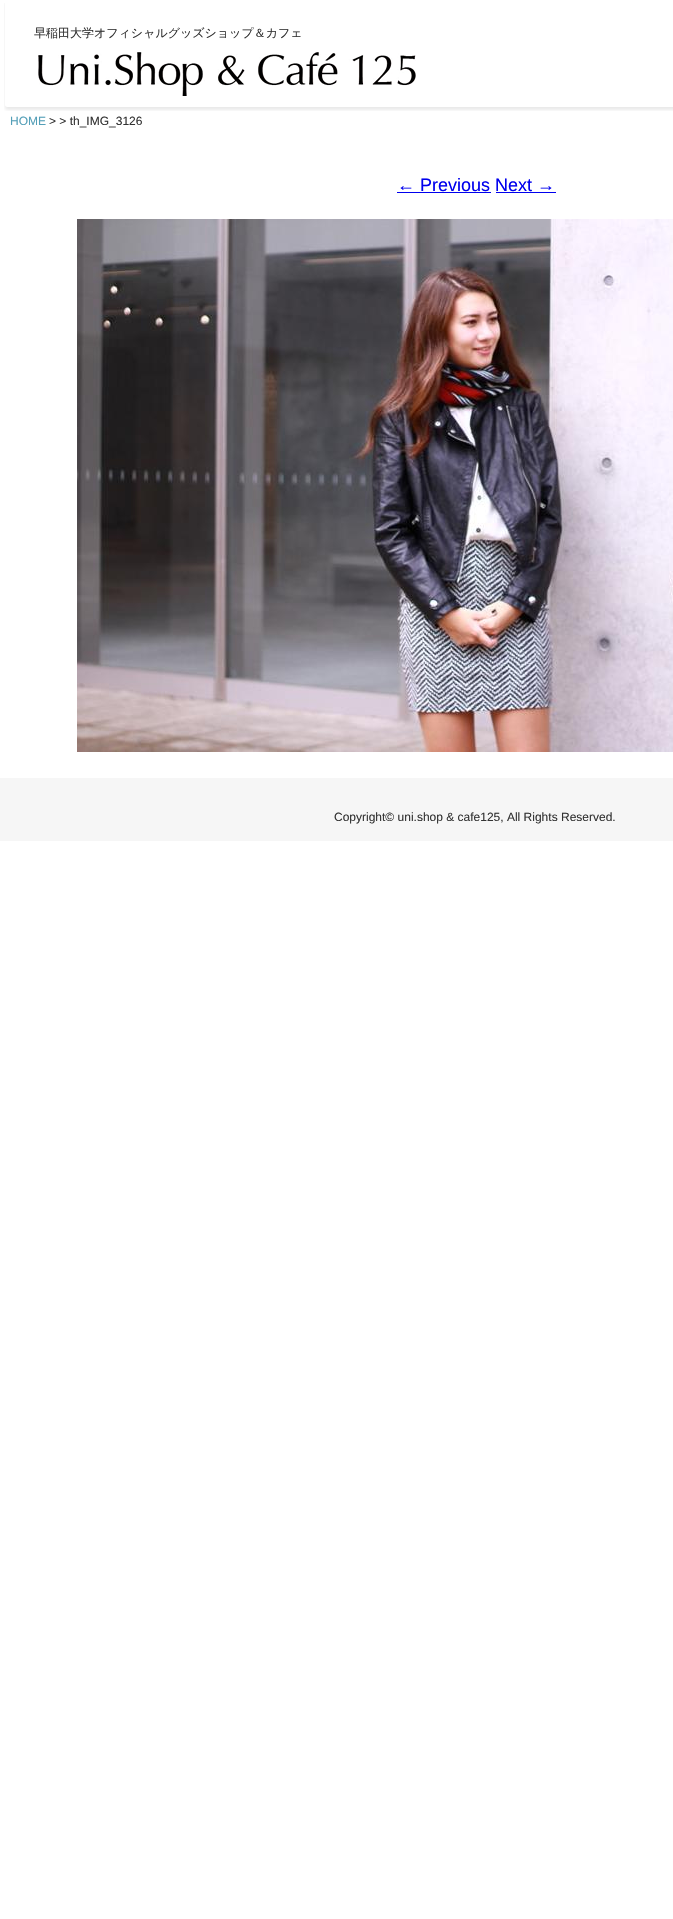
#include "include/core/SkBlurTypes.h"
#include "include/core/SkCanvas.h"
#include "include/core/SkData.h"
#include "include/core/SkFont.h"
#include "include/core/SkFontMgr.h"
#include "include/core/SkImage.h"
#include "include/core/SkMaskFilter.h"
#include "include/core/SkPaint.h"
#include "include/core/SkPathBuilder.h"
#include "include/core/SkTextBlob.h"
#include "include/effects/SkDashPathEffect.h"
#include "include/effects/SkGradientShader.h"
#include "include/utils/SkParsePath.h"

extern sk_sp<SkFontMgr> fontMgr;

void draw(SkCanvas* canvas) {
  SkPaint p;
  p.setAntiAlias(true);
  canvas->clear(SK_ColorWHITE);
  canvas->drawImageRect(SkImages::DeferredFromEncodedData(SkData::MakeFromFileName("images/1.png")), SkRect::MakeLTRB(4, 3, 673, 111), SkSamplingOptions());
  canvas->drawImageRect(SkImages::DeferredFromEncodedData(SkData::MakeFromFileName("images/2.png")), SkRect::MakeLTRB(38, 52, 416, 96), SkSamplingOptions());
  p.setColor(SkColorSetRGB(0, 0, 238));
  canvas->drawRect(SkRect::MakeLTRB(397, 192, 491, 193), p);
  canvas->drawRect(SkRect::MakeLTRB(496, 192, 556, 193), p);
  canvas->drawImageRect(SkImages::DeferredFromEncodedData(SkData::MakeFromFileName("images/3.png")), SkRect::MakeLTRB(77, 219, 673, 752), SkSamplingOptions());
  p.setColor(SkColorSetRGB(246, 246, 246));
  canvas->drawRect(SkRect::MakeLTRB(0, 778, 673, 841), p);
  SkFont font1(fontMgr->matchFamilyStyle("WenQuanYi Zen Hei", SkFontStyle(500, SkFontStyle::kNormal_Width, SkFontStyle::kUpright_Slant)), 12);
  font1.setSubpixel(true);
  p.setColor(SkColorSetRGB(51, 51, 51));
  canvas->drawString("早稲田大学オフィシャルグッズショップ＆カフェ", 34, 37, font1, p);
  SkFont font2(fontMgr->matchFamilyStyle("Liberation Sans", SkFontStyle::Normal()), 12);
  font2.setSubpixel(true);
  p.setColor(SkColorSetRGB(84, 159, 184));
  canvas->drawString("HOME", 10, 125, font2, p);
  p.setColor(SkColorSetRGB(51, 51, 51));
  canvas->drawString("> > th_IMG_3126", 49, 125, font2, p);
  SkFont font3(fontMgr->matchFamilyStyle("Liberation Sans", SkFontStyle::Normal()), 18);
  font3.setSubpixel(true);
  p.setColor(SkColorSetRGB(0, 0, 238));
  canvas->drawString("← Previous Next →", 397, 191, font3, p);
  p.setColor(SkColorSetRGB(51, 51, 51));
  canvas->drawString("Copyright© uni.shop & cafe125, All Rights Reserved.", 334, 821, font2, p);
}
